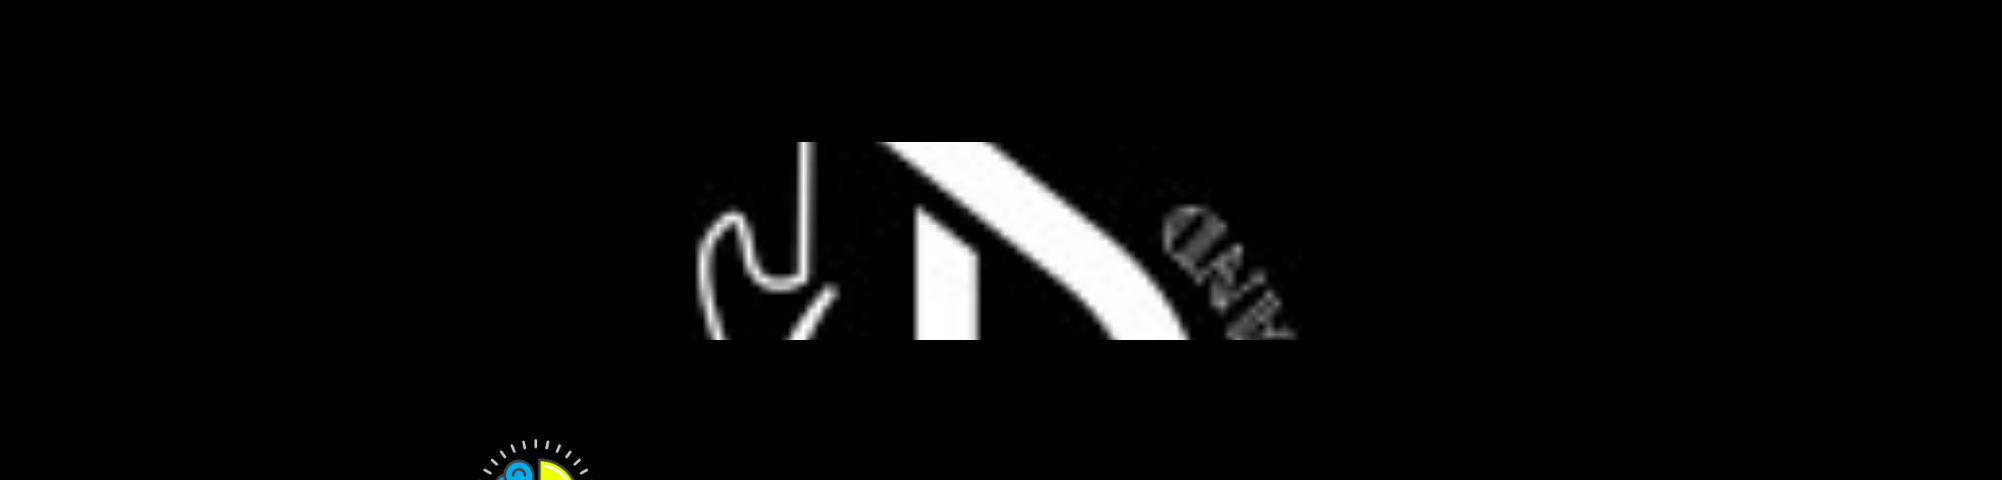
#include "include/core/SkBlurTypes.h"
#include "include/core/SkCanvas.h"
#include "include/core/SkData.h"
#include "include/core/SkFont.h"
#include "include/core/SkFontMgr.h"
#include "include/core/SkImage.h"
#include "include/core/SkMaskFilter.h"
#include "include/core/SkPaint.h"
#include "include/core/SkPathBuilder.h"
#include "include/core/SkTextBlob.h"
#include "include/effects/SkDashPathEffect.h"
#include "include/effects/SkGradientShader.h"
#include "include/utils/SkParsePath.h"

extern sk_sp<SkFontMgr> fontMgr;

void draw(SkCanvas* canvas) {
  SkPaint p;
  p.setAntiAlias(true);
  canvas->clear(SK_ColorBLACK);
  canvas->drawImageRect(SkImages::DeferredFromEncodedData(SkData::MakeFromFileName("images/1.png")), SkRect::MakeLTRB(692, 142, 1303, 340), SkSamplingOptions());
  canvas->drawImageRect(SkImages::DeferredFromEncodedData(SkData::MakeFromFileName("images/2.png")), SkRect::MakeLTRB(479, 439, 593, 480), SkSamplingOptions());
}
